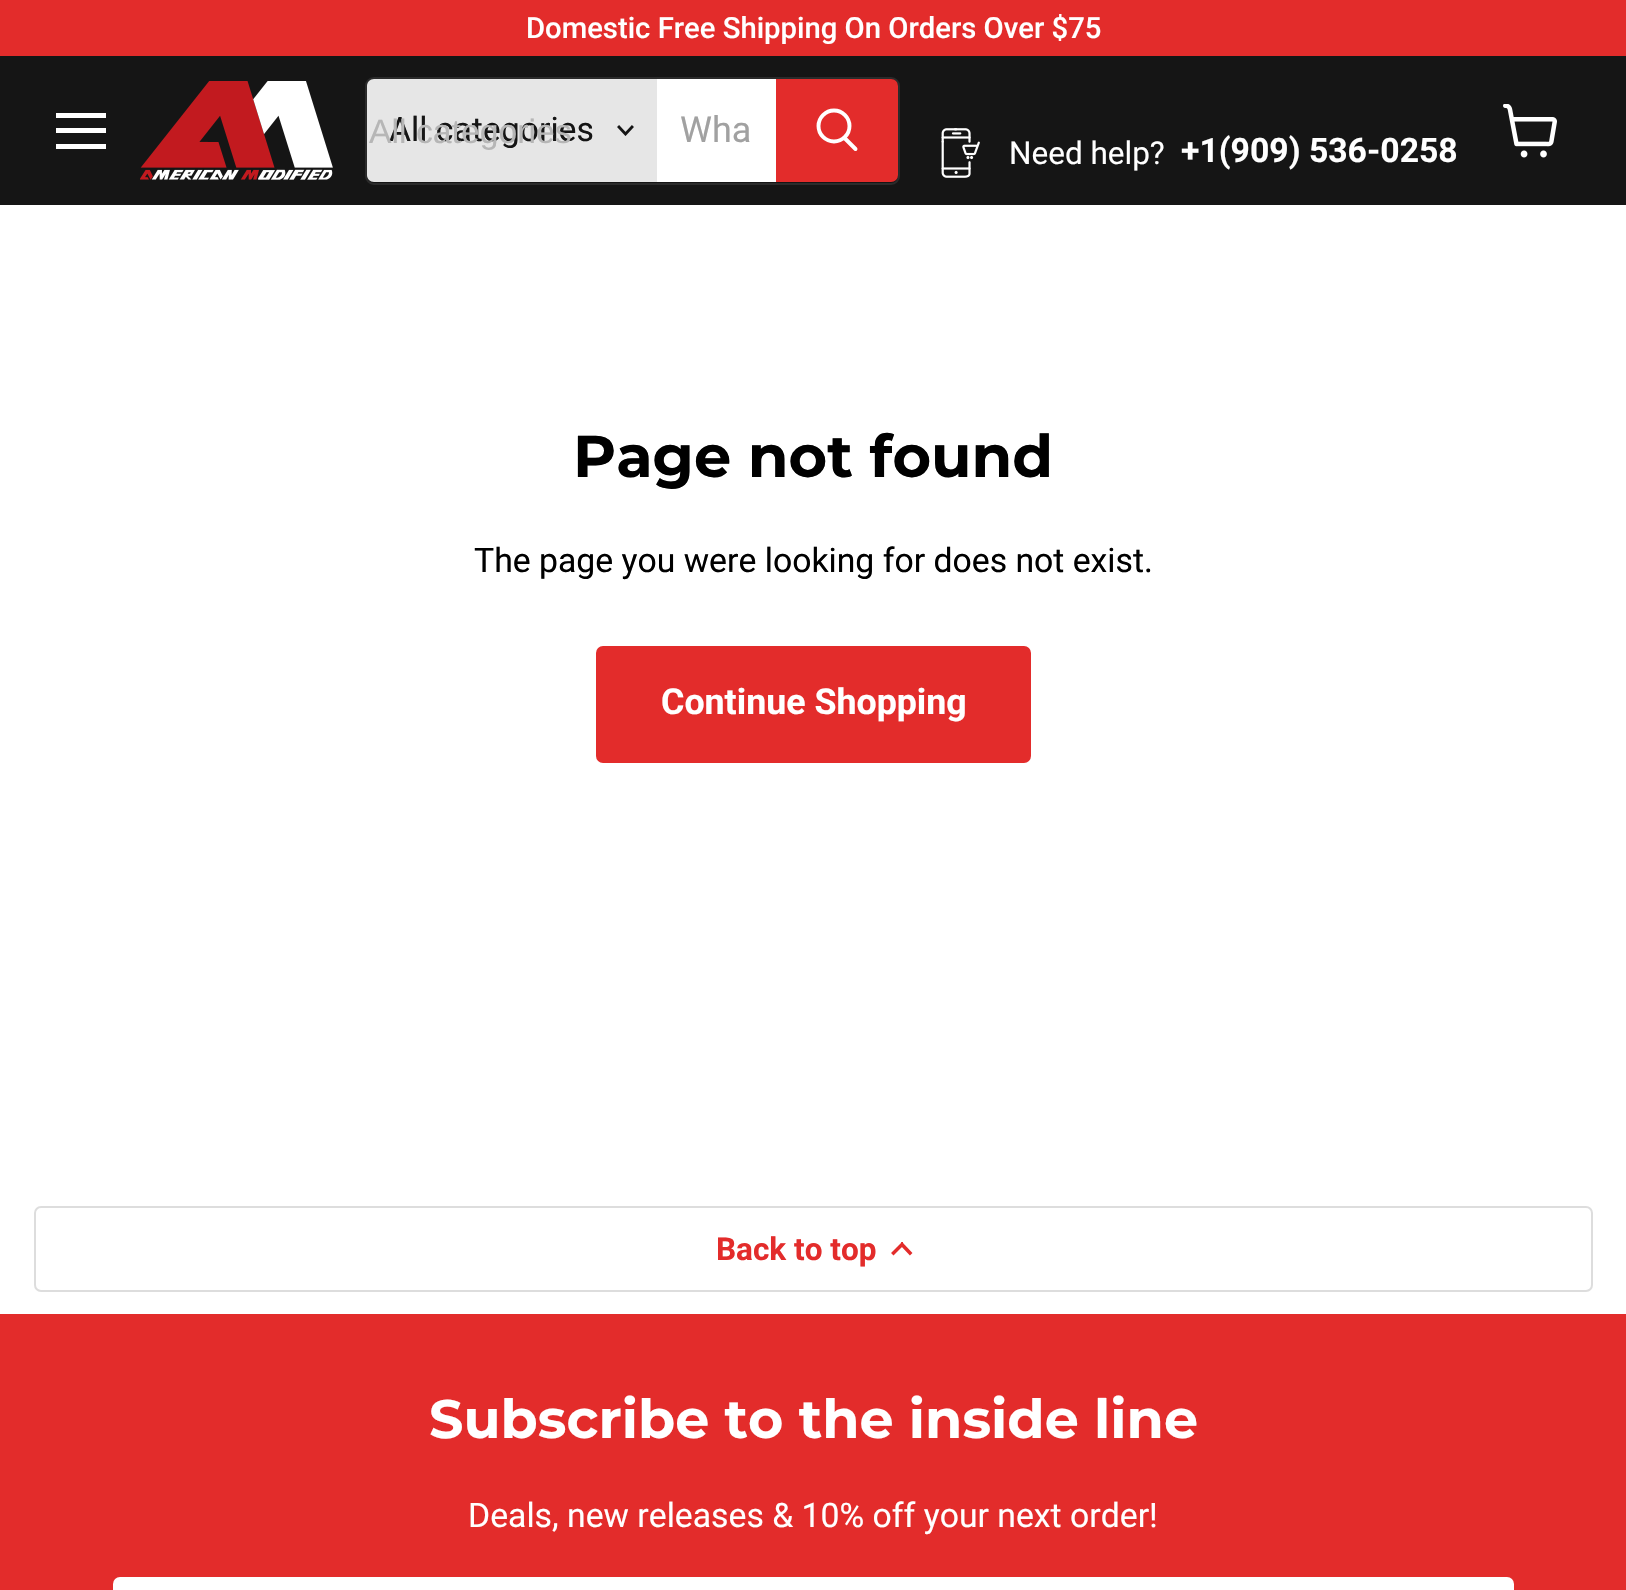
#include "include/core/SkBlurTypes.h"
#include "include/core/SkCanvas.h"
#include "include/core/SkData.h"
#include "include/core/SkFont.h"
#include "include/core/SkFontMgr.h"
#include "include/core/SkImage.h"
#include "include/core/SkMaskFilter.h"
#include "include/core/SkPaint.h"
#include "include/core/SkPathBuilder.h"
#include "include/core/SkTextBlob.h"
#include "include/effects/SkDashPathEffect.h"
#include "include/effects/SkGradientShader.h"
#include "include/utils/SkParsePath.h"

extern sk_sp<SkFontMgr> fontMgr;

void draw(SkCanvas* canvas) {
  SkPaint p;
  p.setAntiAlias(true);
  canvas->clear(SK_ColorWHITE);
  p.setColor(SkColorSetRGB(227, 44, 43));
  canvas->drawRect(SkRect::MakeLTRB(0, 0, 1626, 56), p);
  p.setColor(SkColorSetRGB(21, 21, 21));
  canvas->drawRect(SkRect::MakeLTRB(0, 56, 1626, 205), p);
  p.setColor(SK_ColorWHITE);
  canvas->drawRect(SkRect::MakeLTRB(56, 113, 106, 118), p);
  canvas->drawRect(SkRect::MakeLTRB(56, 128, 106, 133), p);
  canvas->drawRect(SkRect::MakeLTRB(56, 144, 106, 149), p);
  canvas->drawImageRect(SkImages::DeferredFromEncodedData(SkData::MakeFromFileName("images/1.png")), SkRect::MakeLTRB(140, 81, 333, 180), SkSamplingOptions());
  p.setStyle(SkPaint::kStroke_Style);
  p.setStrokeWidth(2);
  p.setColor(SkColorSetARGB(51, 128, 128, 128));
  canvas->drawRoundRect(SkRect::MakeLTRB(366, 78, 899, 184), 8, 8, p);
  p.setStyle(SkPaint::kFill_Style);
  p.setColor(SkColorSetRGB(230, 230, 230));
  canvas->drawPath(SkPathBuilder().moveTo(374, 79).lineTo(657, 79).lineTo(657, 182).lineTo(374, 182).cubicTo(370, 182, 367, 179, 367, 175).lineTo(367, 86).cubicTo(367, 82, 370, 79, 374, 79).close().detach(), p);
  p.setStyle(SkPaint::kStroke_Style);
  p.setStrokeWidth(2.8f);
  p.setStrokeCap(SkPaint::kSquare_Cap);
  p.setColor(SkColorSetRGB(21, 21, 21));
  canvas->drawPath(SkPathBuilder().moveTo(625.5f, 134).lineTo(632, 127).moveTo(625.5f, 134).lineTo(619, 127).detach(), p);
  p.setStyle(SkPaint::kFill_Style);
  p.setColor(SK_ColorWHITE);
  canvas->drawRect(SkRect::MakeLTRB(657, 79, 776, 182), p);
  p.setColor(SkColorSetRGB(227, 44, 43));
  canvas->drawPath(SkPathBuilder().moveTo(777, 80).lineTo(891, 80).cubicTo(894.5f, 80, 897, 82.5f, 897, 86).lineTo(897, 175).cubicTo(897, 178.5f, 894.5f, 181, 891, 181).lineTo(777, 181).close().detach(), p);
  p.setStyle(SkPaint::kStroke_Style);
  p.setStrokeWidth(2);
  p.setStrokeCap(SkPaint::kButt_Cap);
  canvas->drawPath(SkPathBuilder().moveTo(777, 80).lineTo(891, 80).cubicTo(894.5f, 80, 897, 82.5f, 897, 86).lineTo(897, 175).cubicTo(897, 178.5f, 894.5f, 181, 891, 181).lineTo(777, 181).close().detach(), p);
  p.setStrokeWidth(3.9f);
  p.setStrokeCap(SkPaint::kRound_Cap);
  p.setColor(SK_ColorWHITE);
  canvas->drawPath(SkPathBuilder().moveTo(855.5f, 149).lineTo(845, 138.5f).detach(), p);
  p.setStrokeCap(SkPaint::kButt_Cap);
  canvas->drawCircle(834, 126, 15.5f, p);
  canvas->drawImageRect(SkImages::DeferredFromEncodedData(SkData::MakeFromFileName("images/2.png")), SkRect::MakeLTRB(941, 128, 980, 178), SkSamplingOptions());
  canvas->drawImageRect(SkImages::DeferredFromEncodedData(SkData::MakeFromFileName("images/3.png")), SkRect::MakeLTRB(1503, 104, 1557, 158), SkSamplingOptions());
  p.setStyle(SkPaint::kFill_Style);
  p.setColor(SkColorSetRGB(227, 44, 43));
  canvas->drawRoundRect(SkRect::MakeLTRB(597, 647, 1030, 762), 6, 6, p);
  p.setStyle(SkPaint::kStroke_Style);
  p.setStrokeWidth(2);
  canvas->drawRoundRect(SkRect::MakeLTRB(597, 647, 1030, 762), 6, 6, p);
  p.setColor(SkColorSetRGB(221, 221, 221));
  canvas->drawRoundRect(SkRect::MakeLTRB(35, 1207, 1592, 1291), 6, 6, p);
  p.setStrokeWidth(3.5f);
  p.setStrokeCap(SkPaint::kSquare_Cap);
  p.setColor(SkColorSetRGB(227, 44, 43));
  canvas->drawPath(SkPathBuilder().moveTo(902, 1244.5f).lineTo(893.5f, 1253).moveTo(902, 1244.5f).lineTo(910, 1253).detach(), p);
  p.setStyle(SkPaint::kFill_Style);
  canvas->drawRect(SkRect::MakeLTRB(0, 1314, 1626, 1590), p);
  p.setColor(SK_ColorWHITE);
  canvas->drawRoundRect(SkRect::MakeLTRB(113, 1577, 1514, 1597), 7, 7, p);
  SkFont font1(fontMgr->matchFamilyStyle("Roboto", SkFontStyle(500, SkFontStyle::kNormal_Width, SkFontStyle::kUpright_Slant)), 29.25f);
  font1.setSubpixel(true);
  canvas->drawString("Domestic Free Shipping On Orders Over $75", 526, 38, font1, p);
  SkFont font2(fontMgr->matchFamilyStyle("Roboto", SkFontStyle::Normal()), 33.75f);
  font2.setSubpixel(true);
  p.setColor(SkColorSetRGB(21, 21, 21));
  canvas->drawString("All categories", 389, 141, font2, p);
  SkFont font3(fontMgr->matchFamilyStyle("Liberation Sans", SkFontStyle::Normal()), 33.75f);
  font3.setSubpixel(true);
  p.setColor(SkColorSetRGB(182, 182, 182));
  canvas->drawString("All categories", 369, 143, font3, p);
  SkFont font4(fontMgr->matchFamilyStyle("Roboto", SkFontStyle::Normal()), 36);
  font4.setSubpixel(true);
  p.setColor(SkColorSetRGB(161, 161, 161));
  canvas->drawString("Wha", 680, 142, font4, p);
  SkFont font5(fontMgr->matchFamilyStyle("Roboto", SkFontStyle::Normal()), 31.5f);
  font5.setSubpixel(true);
  p.setColor(SK_ColorWHITE);
  canvas->drawString("Need help?", 1009, 164, font5, p);
  SkFont font6(fontMgr->matchFamilyStyle("Roboto", SkFontStyle::Bold()), 33.75f);
  font6.setSubpixel(true);
  canvas->drawString("+1(909) 536-0258", 1181, 162, font6, p);
  SkFont font7(fontMgr->matchFamilyStyle("Montserrat", SkFontStyle::Bold()), 59);
  font7.setSubpixel(true);
  p.setColor(SK_ColorBLACK);
  canvas->drawString("Page not found", 573, 477, font7, p);
  canvas->drawString("The page you were looking for does not exist.", 474, 572, font2, p);
  SkFont font8(fontMgr->matchFamilyStyle("Roboto", SkFontStyle::Bold()), 35.75f);
  font8.setSubpixel(true);
  p.setColor(SK_ColorWHITE);
  canvas->drawString("Continue Shopping", 661, 714, font8, p);
  SkFont font9(fontMgr->matchFamilyStyle("Roboto", SkFontStyle::Bold()), 31.5f);
  font9.setSubpixel(true);
  p.setColor(SkColorSetRGB(227, 44, 43));
  canvas->drawString("Back to top", 716, 1260, font9, p);
  SkFont font10(fontMgr->matchFamilyStyle("Montserrat", SkFontStyle::Bold()), 54);
  font10.setSubpixel(true);
  p.setColor(SK_ColorWHITE);
  canvas->drawString("Subscribe to the inside line", 429, 1438, font10, p);
  canvas->drawString("Deals, new releases & 10% off your next order!", 468, 1527, font2, p);
}
